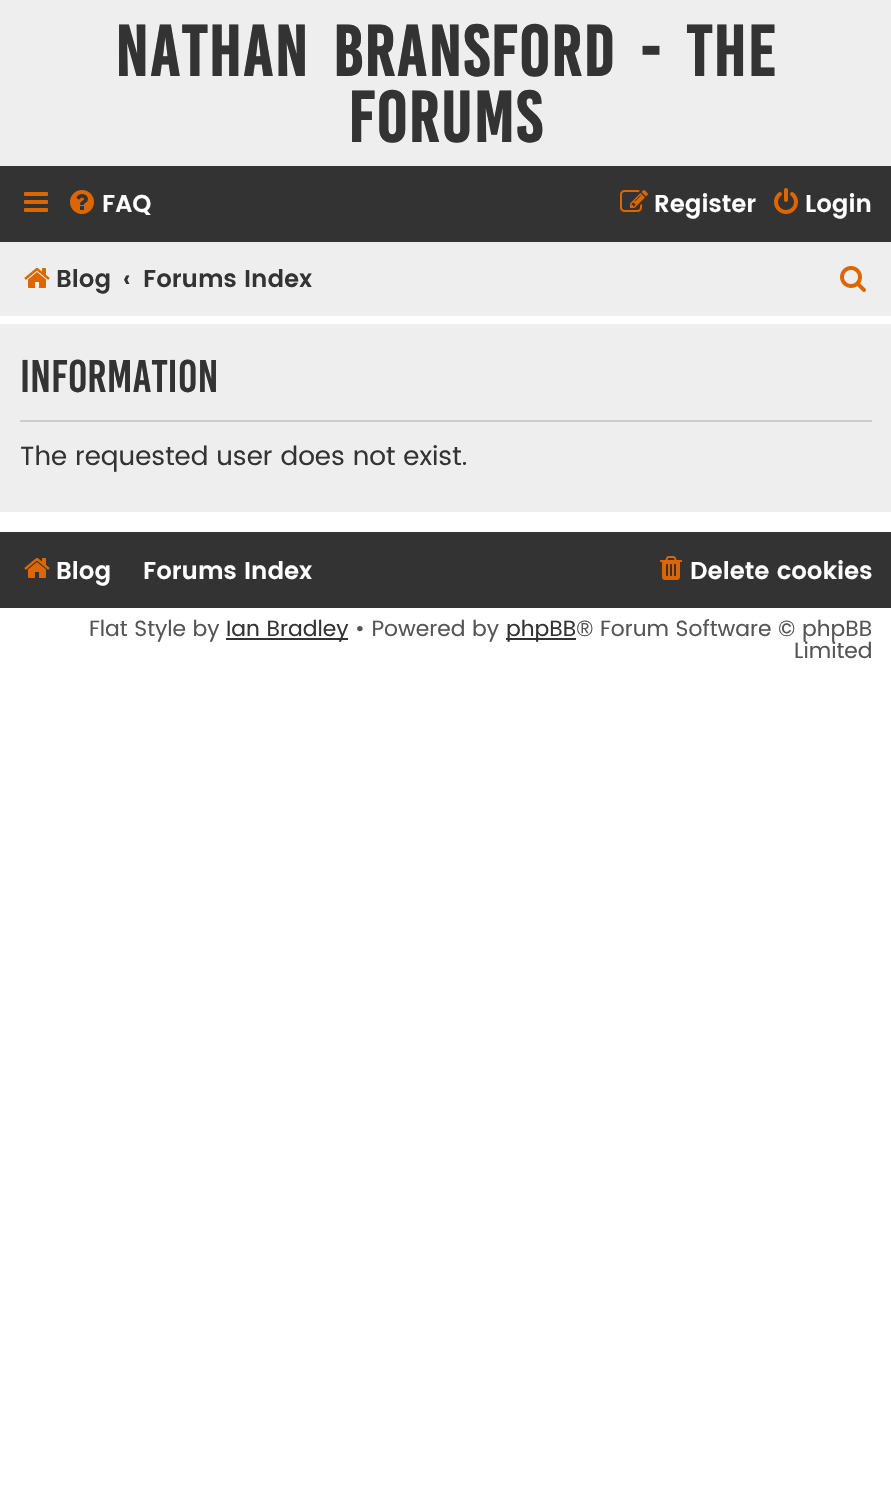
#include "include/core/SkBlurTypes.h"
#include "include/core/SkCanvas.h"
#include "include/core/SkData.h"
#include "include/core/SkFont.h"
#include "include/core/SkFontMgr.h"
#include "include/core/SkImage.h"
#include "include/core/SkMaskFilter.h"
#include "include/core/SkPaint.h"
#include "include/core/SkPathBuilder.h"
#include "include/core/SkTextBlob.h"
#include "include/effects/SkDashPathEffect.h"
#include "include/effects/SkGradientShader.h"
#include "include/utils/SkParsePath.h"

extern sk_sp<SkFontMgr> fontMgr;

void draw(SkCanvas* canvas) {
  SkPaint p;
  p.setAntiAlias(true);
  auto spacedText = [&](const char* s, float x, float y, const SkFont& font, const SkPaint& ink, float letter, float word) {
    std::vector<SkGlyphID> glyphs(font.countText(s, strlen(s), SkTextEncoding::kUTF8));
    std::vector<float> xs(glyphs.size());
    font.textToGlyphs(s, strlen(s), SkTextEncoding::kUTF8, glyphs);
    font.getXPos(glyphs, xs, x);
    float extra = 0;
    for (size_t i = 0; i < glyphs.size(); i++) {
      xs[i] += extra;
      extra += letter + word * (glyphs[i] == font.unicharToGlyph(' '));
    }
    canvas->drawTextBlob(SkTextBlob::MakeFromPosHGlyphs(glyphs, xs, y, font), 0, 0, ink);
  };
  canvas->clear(SK_ColorWHITE);
  p.setColor(SkColorSetRGB(238, 238, 238));
  canvas->drawRect(SkRect::MakeLTRB(0, 0, 891, 166), p);
  p.setColor(SkColorSetRGB(51, 51, 51));
  canvas->drawRect(SkRect::MakeLTRB(0, 166, 891, 242), p);
  canvas->drawImageRect(SkImages::DeferredFromEncodedData(SkData::MakeFromFileName("images/1.png")), SkRect::MakeLTRB(24, 192, 48, 212), SkSamplingOptions());
  canvas->drawImageRect(SkImages::DeferredFromEncodedData(SkData::MakeFromFileName("images/2.png")), SkRect::MakeLTRB(70, 190, 94, 214), SkSamplingOptions());
  canvas->drawImageRect(SkImages::DeferredFromEncodedData(SkData::MakeFromFileName("images/3.png")), SkRect::MakeLTRB(620, 190, 648, 212), SkSamplingOptions());
  canvas->drawImageRect(SkImages::DeferredFromEncodedData(SkData::MakeFromFileName("images/4.png")), SkRect::MakeLTRB(774, 188, 798, 214), SkSamplingOptions());
  p.setColor(SkColorSetRGB(238, 238, 238));
  canvas->drawRect(SkRect::MakeLTRB(0, 242, 891, 316), p);
  canvas->drawImageRect(SkImages::DeferredFromEncodedData(SkData::MakeFromFileName("images/5.png")), SkRect::MakeLTRB(24, 268, 50, 288), SkSamplingOptions());
  canvas->drawImageRect(SkImages::DeferredFromEncodedData(SkData::MakeFromFileName("images/6.png")), SkRect::MakeLTRB(840, 266, 866, 292), SkSamplingOptions());
  canvas->drawRect(SkRect::MakeLTRB(0, 324, 891, 512), p);
  p.setColor(SkColorSetRGB(204, 204, 204));
  canvas->drawRect(SkRect::MakeLTRB(20, 420, 872, 422), p);
  p.setColor(SkColorSetRGB(51, 51, 51));
  canvas->drawRect(SkRect::MakeLTRB(0, 532, 891, 608), p);
  canvas->drawImageRect(SkImages::DeferredFromEncodedData(SkData::MakeFromFileName("images/7.png")), SkRect::MakeLTRB(24, 558, 50, 578), SkSamplingOptions());
  canvas->drawImageRect(SkImages::DeferredFromEncodedData(SkData::MakeFromFileName("images/8.png")), SkRect::MakeLTRB(660, 556, 682, 580), SkSamplingOptions());
  canvas->drawRect(SkRect::MakeLTRB(226, 638, 348, 640), p);
  canvas->drawRect(SkRect::MakeLTRB(506, 638, 576, 640), p);
  SkFont font1(fontMgr->matchFamilyStyle("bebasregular", SkFontStyle::Bold()), 55);
  font1.setSubpixel(true);
  spacedText("Nathan Bransford - The", 115, 76, font1, p, 2, 8);
  spacedText("Forums", 348, 142, font1, p, 2, 0);
  SkFont font2(fontMgr->matchFamilyStyle("Poppins", SkFontStyle(600, SkFontStyle::kNormal_Width, SkFontStyle::kUpright_Slant)), 24.25f);
  font2.setSubpixel(true);
  p.setColor(SK_ColorWHITE);
  canvas->drawString("FAQ", 102, 212, font2, p);
  canvas->drawString("Register", 654, 212, font2, p);
  canvas->drawString("Login", 805, 212, font2, p);
  p.setColor(SkColorSetRGB(51, 51, 51));
  canvas->drawString("Blog", 56, 287, font2, p);
  canvas->drawString("‹", 123, 287, font2, p);
  canvas->drawString("Forums Index", 143, 287, font2, p);
  SkFont font3(fontMgr->matchFamilyStyle("bebasregular", SkFontStyle::Normal()), 35.25f);
  font3.setSubpixel(true);
  canvas->drawString("Information", 20, 392, font3, p);
  SkFont font4(fontMgr->matchFamilyStyle("Poppins", SkFontStyle::Normal()), 26.4f);
  font4.setSubpixel(true);
  canvas->drawString("The requested user does not exist.", 20, 465, font4, p);
  p.setColor(SK_ColorWHITE);
  canvas->drawString("Blog", 56, 579, font2, p);
  canvas->drawString("Forums Index", 143, 579, font2, p);
  canvas->drawString("Delete cookies", 690, 579, font2, p);
  SkFont font5(fontMgr->matchFamilyStyle("Poppins", SkFontStyle::Normal()), 22);
  font5.setSubpixel(true);
  p.setColor(SkColorSetRGB(85, 85, 85));
  canvas->drawString("Flat Style by", 89, 636, font5, p);
  p.setColor(SkColorSetRGB(51, 51, 51));
  canvas->drawString("Ian Bradley", 226, 636, font5, p);
  p.setColor(SkColorSetRGB(85, 85, 85));
  canvas->drawString("• Powered by", 355, 636, font5, p);
  p.setColor(SkColorSetRGB(51, 51, 51));
  canvas->drawString("phpBB", 506, 636, font5, p);
  p.setColor(SkColorSetRGB(85, 85, 85));
  canvas->drawString("® Forum Software © phpBB", 576, 636, font5, p);
  canvas->drawString("Limited", 794, 658, font5, p);
}
